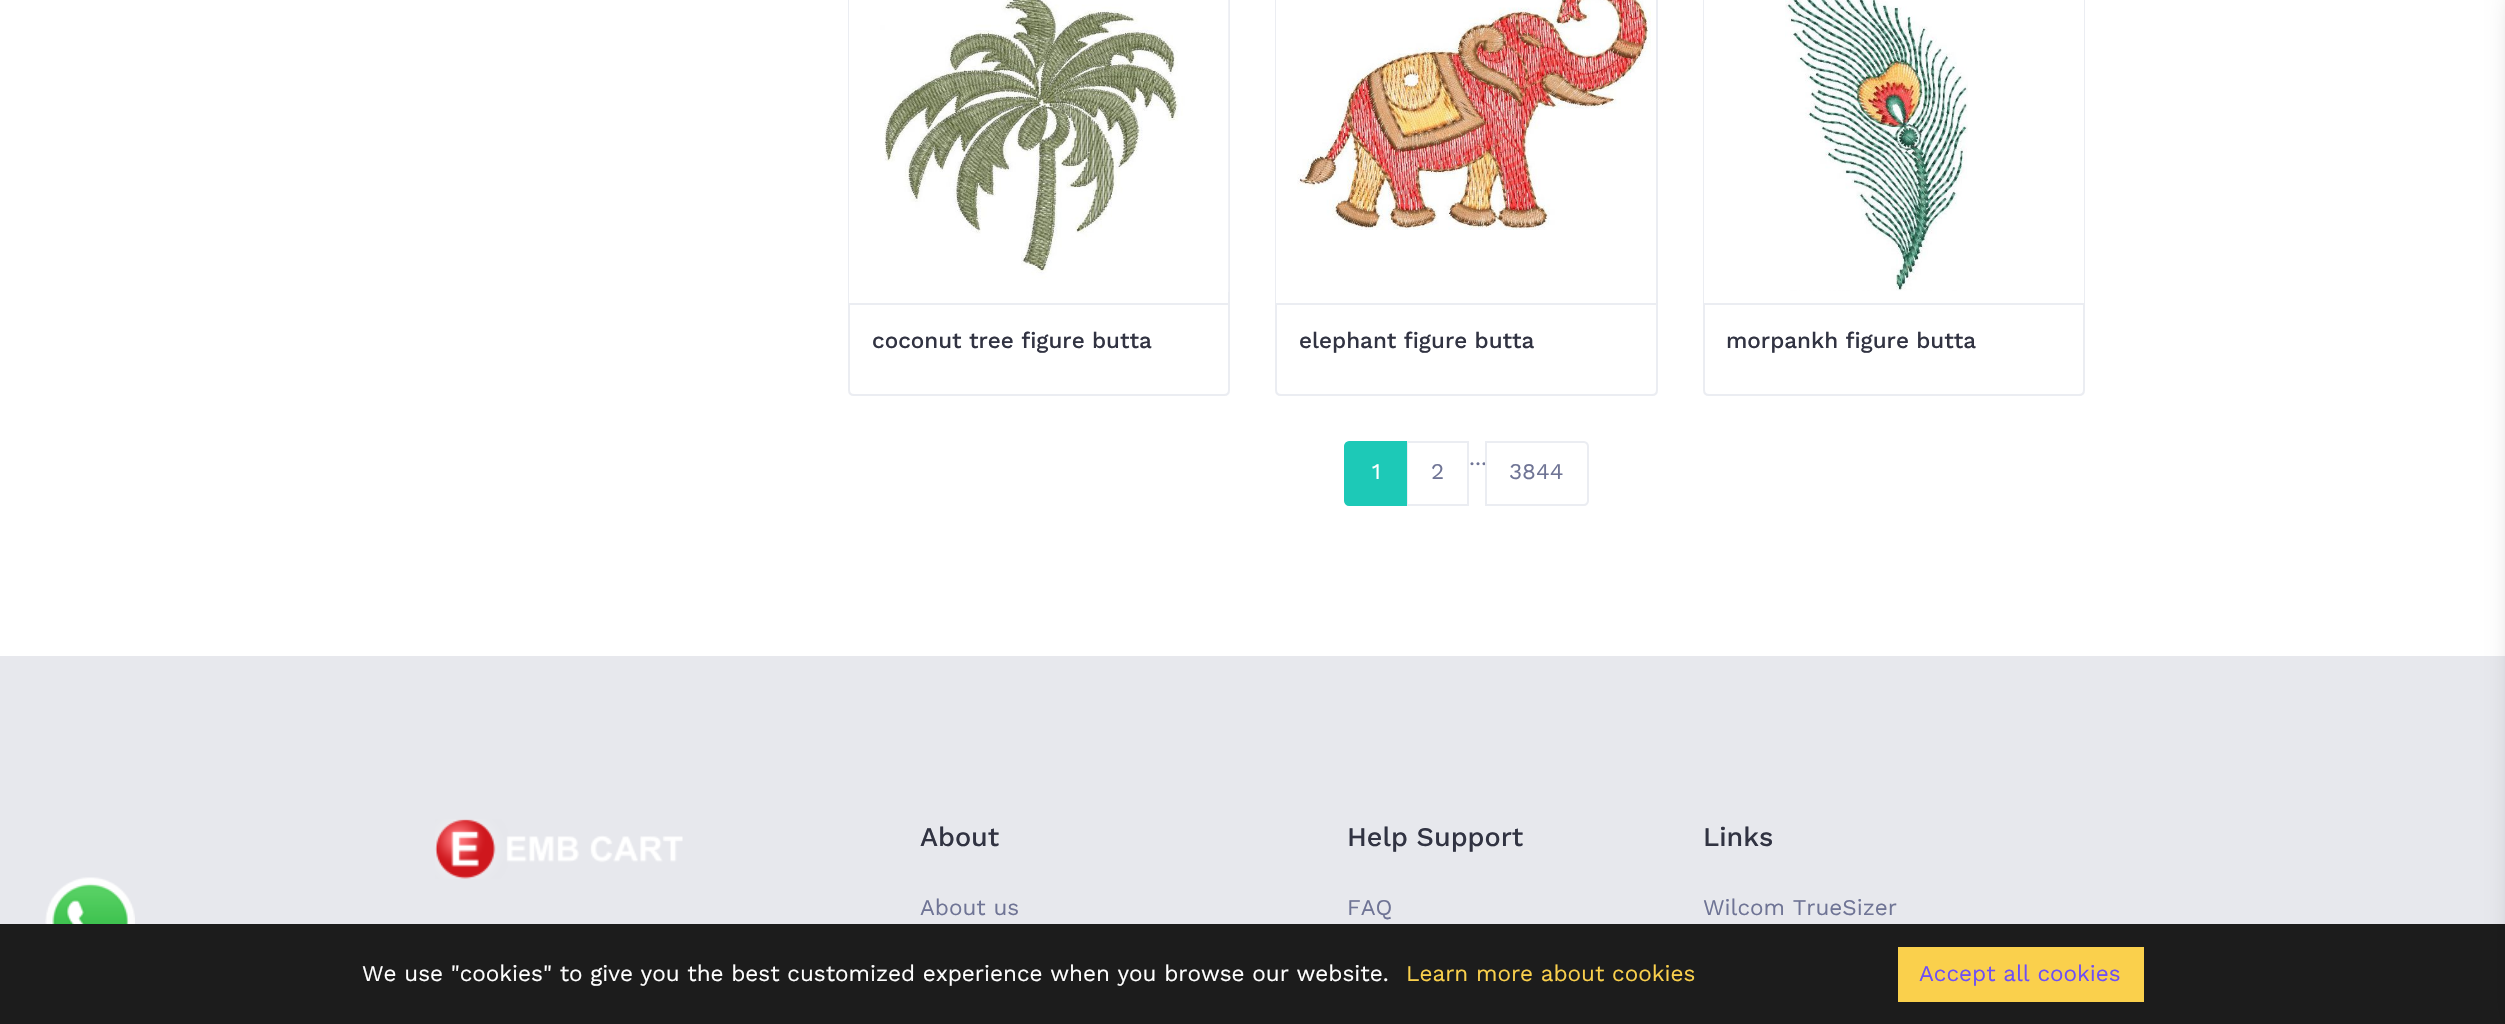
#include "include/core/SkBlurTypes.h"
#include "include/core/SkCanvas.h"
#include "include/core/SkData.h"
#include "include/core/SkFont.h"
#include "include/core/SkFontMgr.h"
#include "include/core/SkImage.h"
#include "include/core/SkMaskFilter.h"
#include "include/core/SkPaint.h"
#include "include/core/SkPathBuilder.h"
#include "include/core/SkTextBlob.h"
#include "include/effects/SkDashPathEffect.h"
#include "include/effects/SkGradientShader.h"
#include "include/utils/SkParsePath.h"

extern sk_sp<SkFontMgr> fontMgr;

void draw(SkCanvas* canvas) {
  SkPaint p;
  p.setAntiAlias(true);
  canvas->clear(SK_ColorWHITE);
  p.setColor(SkColorSetRGB(235, 237, 242));
  canvas->drawPath(SkPathBuilder(SkPathFillType::kEvenOdd).moveTo(854, -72).lineTo(1224, -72).cubicTo(1227, -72, 1230, -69, 1230, -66).lineTo(1230, 303).lineTo(848, 303).lineTo(848, -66).cubicTo(848, -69, 850, -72, 854, -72).close().moveTo(854, -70).lineTo(1224, -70).cubicTo(1226, -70, 1228, -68, 1228, -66).lineTo(1228, 303).lineTo(849, 303).lineTo(849, -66).cubicTo(849, -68, 851, -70, 854, -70).close().detach(), p);
  canvas->drawImageRect(SkImages::DeferredFromEncodedData(SkData::MakeFromFileName("images/1.png")), SkRect::MakeLTRB(880, 0, 1229, 292), SkSamplingOptions());
  p.setStyle(SkPaint::kStroke_Style);
  p.setStrokeWidth(2);
  canvas->drawPath(SkPathBuilder().moveTo(849, 304).lineTo(1229, 304).lineTo(1229, 390).cubicTo(1229, 393, 1227, 395, 1224, 395).lineTo(854, 395).cubicTo(851, 395, 849, 393, 849, 390).close().detach(), p);
  p.setStyle(SkPaint::kFill_Style);
  canvas->drawPath(SkPathBuilder(SkPathFillType::kEvenOdd).moveTo(1281, -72).lineTo(1652, -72).cubicTo(1655, -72, 1658, -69, 1658, -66).lineTo(1658, 303).lineTo(1275, 303).lineTo(1275, -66).cubicTo(1275, -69, 1278, -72, 1281, -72).close().moveTo(1281, -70).lineTo(1652, -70).cubicTo(1654, -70, 1656, -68, 1656, -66).lineTo(1656, 303).lineTo(1276, 303).lineTo(1276, -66).cubicTo(1276, -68, 1279, -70, 1281, -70).close().detach(), p);
  canvas->drawImageRect(SkImages::DeferredFromEncodedData(SkData::MakeFromFileName("images/2.png")), SkRect::MakeLTRB(1297, 0, 1651, 230), SkSamplingOptions());
  p.setStyle(SkPaint::kStroke_Style);
  canvas->drawPath(SkPathBuilder().moveTo(1276, 304).lineTo(1657, 304).lineTo(1657, 390).cubicTo(1657, 393, 1655, 395, 1652, 395).lineTo(1281, 395).cubicTo(1278, 395, 1276, 393, 1276, 390).close().detach(), p);
  p.setStyle(SkPaint::kFill_Style);
  canvas->drawPath(SkPathBuilder().moveTo(1708, -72).cubicTo(1705, -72, 1703, -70, 1703, -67).lineTo(1703, 303).lineTo(1704, 303).lineTo(1704, -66).cubicTo(1704, -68, 1706, -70, 1708, -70).lineTo(2079, -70).cubicTo(2081, -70, 2084, -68, 2084, -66).lineTo(2084, 303).lineTo(2085, 303).lineTo(2085, -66).cubicTo(2085, -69, 2082, -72, 2079, -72).close().detach(), p);
  canvas->drawImageRect(SkImages::DeferredFromEncodedData(SkData::MakeFromFileName("images/3.png")), SkRect::MakeLTRB(1785, 0, 1968, 291), SkSamplingOptions());
  p.setStyle(SkPaint::kStroke_Style);
  canvas->drawPath(SkPathBuilder().moveTo(1704, 304).lineTo(2084, 304).lineTo(2084, 390).cubicTo(2084, 393, 2082, 395, 2079, 395).lineTo(1709, 395).cubicTo(1706, 395, 1704, 393, 1704, 390).close().detach(), p);
  canvas->drawRect(SkRect::MakeLTRB(1407, 442, 1468, 505), p);
  p.setStyle(SkPaint::kFill_Style);
  p.setColor(SkColorSetRGB(29, 201, 183));
  canvas->drawPath(SkPathBuilder().moveTo(1349, 442).lineTo(1406, 442).lineTo(1406, 505).lineTo(1349, 505).cubicTo(1347, 505, 1345, 503, 1345, 501).lineTo(1345, 446).cubicTo(1345, 444, 1347, 442, 1349, 442).close().detach(), p);
  p.setStyle(SkPaint::kStroke_Style);
  canvas->drawPath(SkPathBuilder().moveTo(1349, 442).lineTo(1406, 442).lineTo(1406, 505).lineTo(1349, 505).cubicTo(1347, 505, 1345, 503, 1345, 501).lineTo(1345, 446).cubicTo(1345, 444, 1347, 442, 1349, 442).close().detach(), p);
  p.setStyle(SkPaint::kFill_Style);
  p.setColor(SkColorSetRGB(231, 232, 237));
  canvas->drawRect(SkRect::MakeLTRB(0, 656, 2505, 924), p);
  p.setColor(SkColorSetRGB(28, 28, 28));
  canvas->drawRect(SkRect::MakeLTRB(0, 924, 2505, 1024), p);
  p.setColor(SkColorSetARGB(77, 0, 0, 0));
  p.setMaskFilter(SkMaskFilter::MakeBlur(kNormal_SkBlurStyle, 15));
  canvas->drawRect(SkRect::MakeLTRB(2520, -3, 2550, 1022), p);
  p.setMaskFilter(nullptr);
  canvas->drawImageRect(SkImages::DeferredFromEncodedData(SkData::MakeFromFileName("images/4.png")), SkRect::MakeLTRB(45, 877, 135, 924), SkSamplingOptions());
  canvas->drawImageRect(SkImages::DeferredFromEncodedData(SkData::MakeFromFileName("images/5.png")), SkRect::MakeLTRB(435, 819, 683, 879), SkSamplingOptions());
  p.setColor(SkColorSetRGB(250, 208, 76));
  canvas->drawRect(SkRect::MakeLTRB(1898, 947, 2144, 1002), p);
  SkFont font1(fontMgr->matchFamilyStyle("Work Sans", SkFontStyle(500, SkFontStyle::kNormal_Width, SkFontStyle::kUpright_Slant)), 22.5f);
  font1.setSubpixel(true);
  p.setColor(SkColorSetRGB(49, 51, 66));
  canvas->drawString("coconut tree figure butta", 872, 348, font1, p);
  canvas->drawString("elephant figure butta", 1299, 348, font1, p);
  canvas->drawString("morpankh figure butta", 1726, 348, font1, p);
  SkFont font2(fontMgr->matchFamilyStyle("Work Sans", SkFontStyle::Normal()), 22.5f);
  font2.setSubpixel(true);
  p.setColor(SK_ColorWHITE);
  canvas->drawString("1", 1372, 479, font2, p);
  p.setColor(SkColorSetRGB(111, 116, 149));
  canvas->drawString("2", 1431, 479, font2, p);
  canvas->drawString("...", 1469, 465, font2, p);
  p.setColor(SK_ColorWHITE);
  canvas->drawPath(SkPathBuilder().moveTo(1486, 442).lineTo(1584, 442).cubicTo(1586, 442, 1588, 444, 1588, 446).lineTo(1588, 501).cubicTo(1588, 503, 1586, 505, 1584, 505).lineTo(1486, 505).close().detach(), p);
  p.setStyle(SkPaint::kStroke_Style);
  p.setColor(SkColorSetRGB(235, 237, 242));
  canvas->drawPath(SkPathBuilder().moveTo(1486, 442).lineTo(1584, 442).cubicTo(1586, 442, 1588, 444, 1588, 446).lineTo(1588, 501).cubicTo(1588, 503, 1586, 505, 1584, 505).lineTo(1486, 505).close().detach(), p);
  p.setStyle(SkPaint::kFill_Style);
  p.setColor(SkColorSetRGB(111, 116, 149));
  canvas->drawString("3844", 1509, 479, font2, p);
  SkFont font3(fontMgr->matchFamilyStyle("Work Sans", SkFontStyle(500, SkFontStyle::kNormal_Width, SkFontStyle::kUpright_Slant)), 27);
  font3.setSubpixel(true);
  p.setColor(SkColorSetRGB(49, 51, 66));
  canvas->drawString("About", 920, 846, font3, p);
  p.setColor(SkColorSetRGB(111, 116, 149));
  canvas->drawString("About us", 920, 915, font2, p);
  p.setColor(SkColorSetRGB(49, 51, 66));
  canvas->drawString("Help Support", 1347, 846, font3, p);
  p.setColor(SkColorSetRGB(111, 116, 149));
  canvas->drawString("FAQ", 1347, 915, font2, p);
  p.setColor(SkColorSetRGB(49, 51, 66));
  canvas->drawString("Links", 1703, 846, font3, p);
  p.setColor(SkColorSetRGB(111, 116, 149));
  canvas->drawString("Wilcom TrueSizer", 1703, 915, font2, p);
  p.setColor(SK_ColorWHITE);
  canvas->drawString("We use \"cookies\" to give you the best customized experience when you browse our website.", 362, 981, font2, p);
  p.setColor(SkColorSetRGB(250, 208, 76));
  canvas->drawString("Learn more about cookies", 1406, 981, font2, p);
  p.setColor(SkColorSetRGB(110, 79, 246));
  canvas->drawString("Accept all cookies", 1919, 981, font2, p);
}
